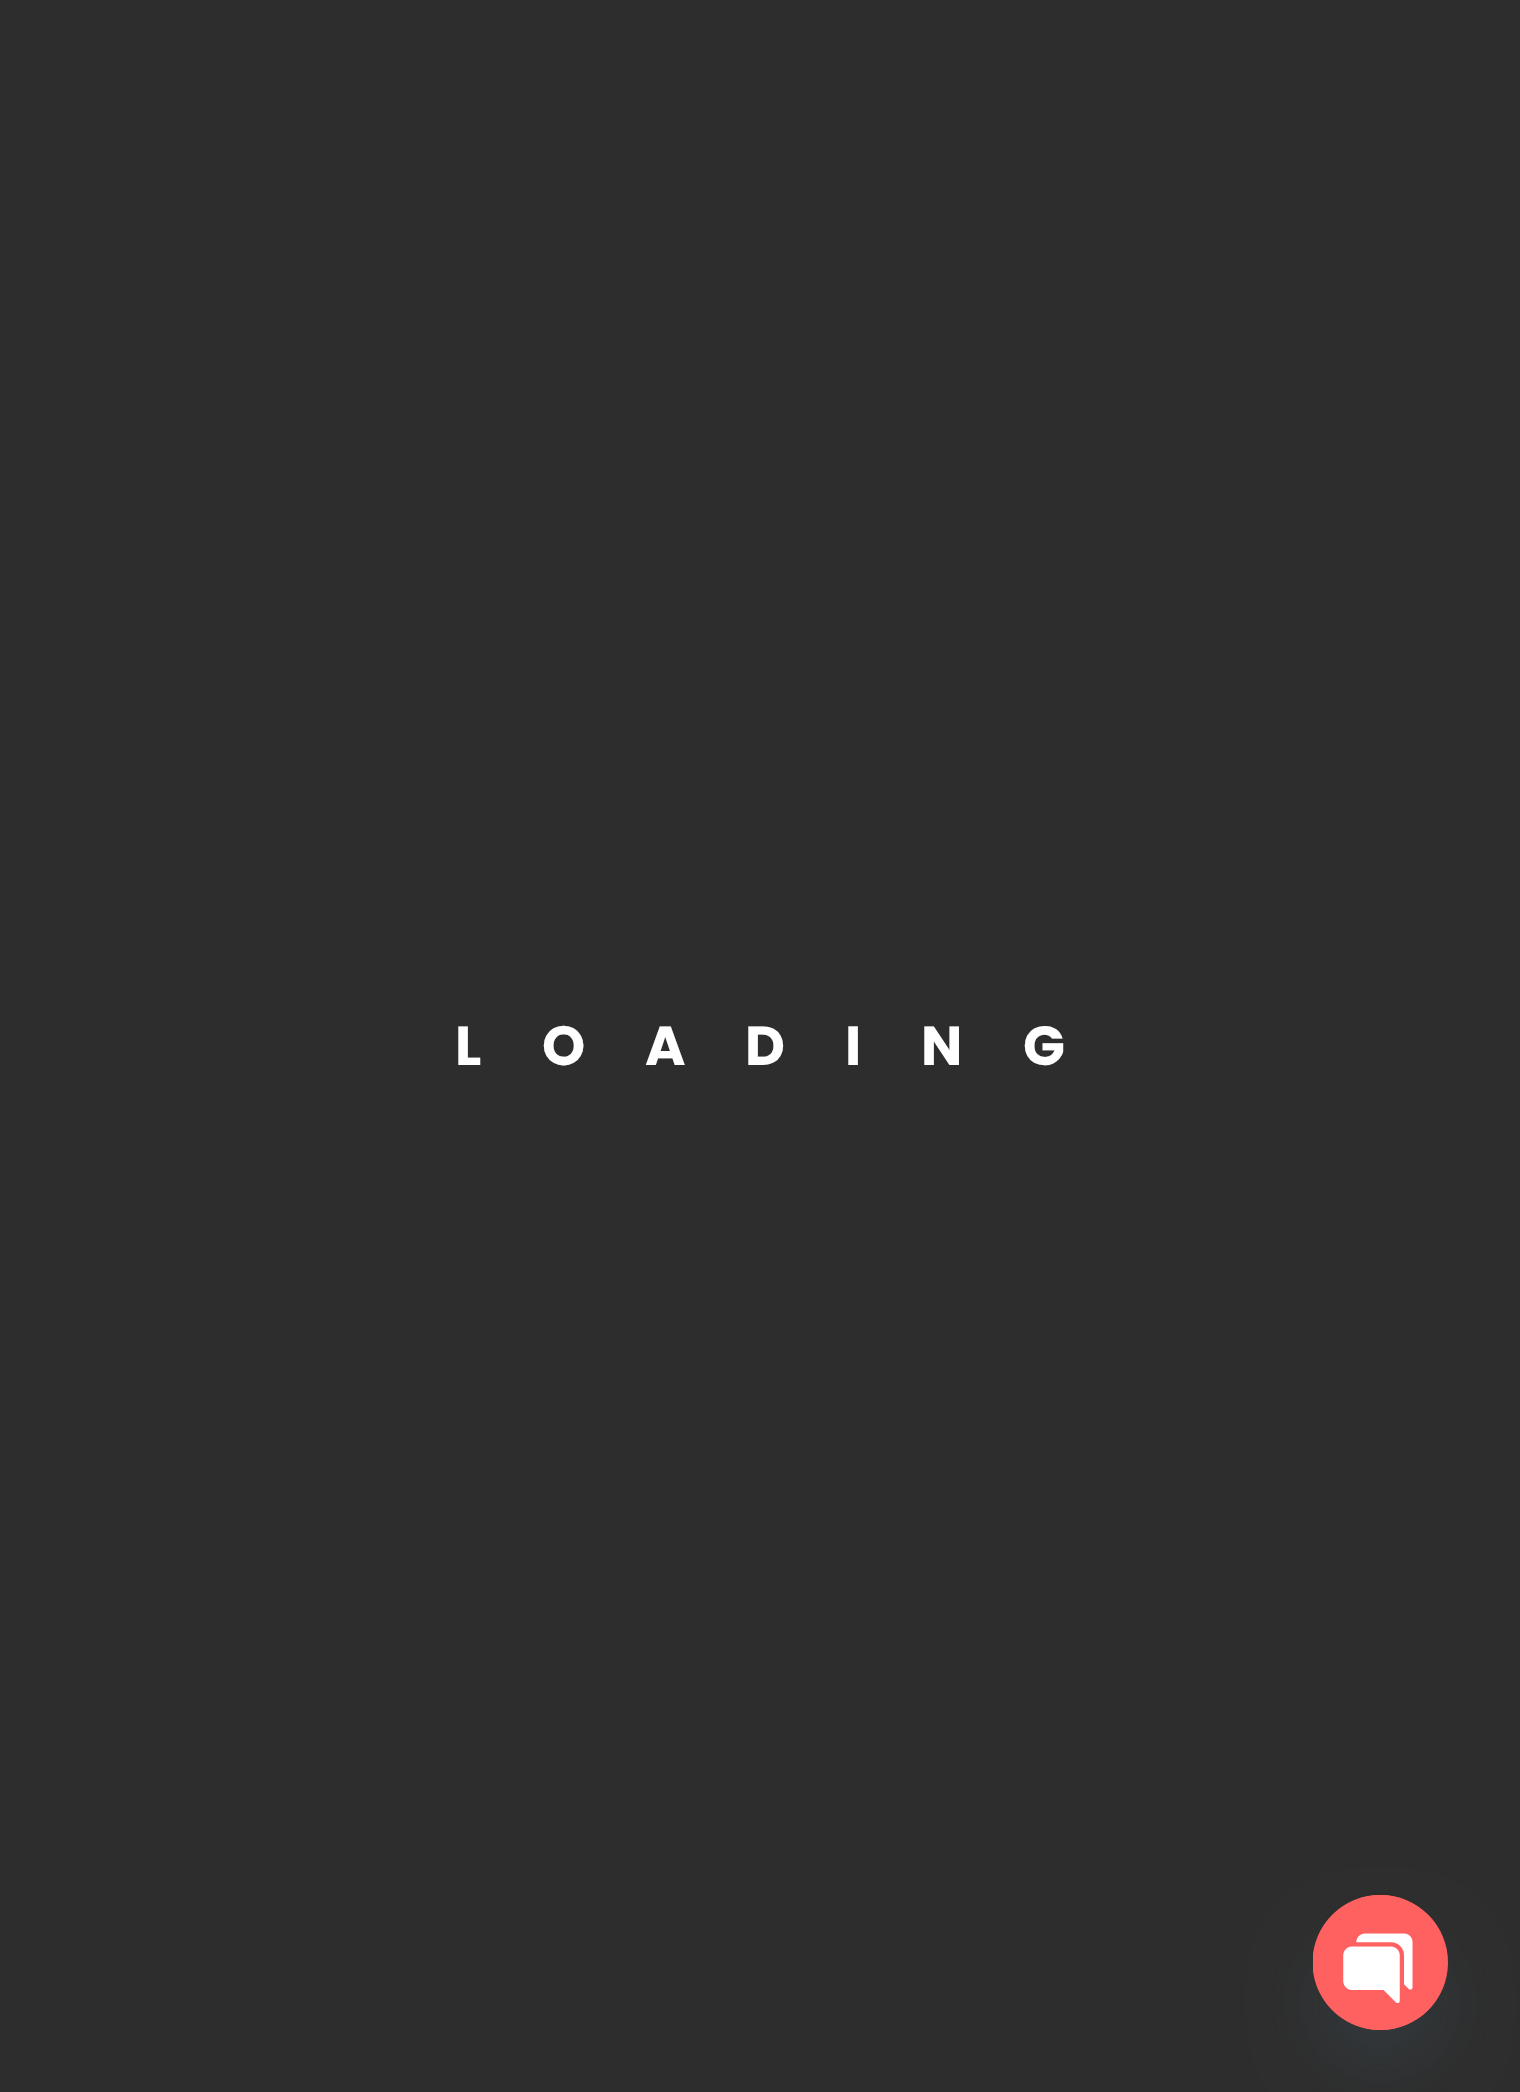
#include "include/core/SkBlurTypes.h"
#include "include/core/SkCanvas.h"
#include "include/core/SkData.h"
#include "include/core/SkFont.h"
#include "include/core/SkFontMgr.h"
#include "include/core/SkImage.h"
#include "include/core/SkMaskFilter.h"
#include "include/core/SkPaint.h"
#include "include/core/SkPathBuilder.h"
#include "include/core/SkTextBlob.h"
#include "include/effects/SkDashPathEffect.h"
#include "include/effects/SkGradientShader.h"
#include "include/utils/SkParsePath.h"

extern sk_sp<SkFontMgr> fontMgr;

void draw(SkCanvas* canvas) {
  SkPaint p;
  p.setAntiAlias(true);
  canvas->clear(SkColorSetRGB(45, 45, 45));
  p.setColor(SkColorSetARGB(41, 73, 104, 126));
  p.setMaskFilter(SkMaskFilter::MakeBlur(kNormal_SkBlurStyle, 30));
  canvas->drawRoundRect(SkRect::MakeLTRB(1313, 1935, 1448, 2070), 67.5f, 67.5f, p);
  p.setMaskFilter(nullptr);
  p.setColor(SkColorSetRGB(255, 96, 96));
  canvas->drawCircle(1380.5f, 1962.5f, 67.5f, p);
  canvas->drawImageRect(SkImages::DeferredFromEncodedData(SkData::MakeFromFileName("images/1.png")), SkRect::MakeLTRB(1313, 1895, 1445, 2030), SkSamplingOptions());
  SkFont font1(fontMgr->matchFamilyStyle("Poppins", SkFontStyle::Bold()), 55);
  font1.setSubpixel(true);
  p.setColor(SK_ColorWHITE);
  canvas->drawString("L", 455, 1065, font1, p);
  canvas->drawString("O", 542, 1065, font1, p);
  canvas->drawString("A", 645, 1065, font1, p);
  canvas->drawString("D", 745, 1065, font1, p);
  canvas->drawString("I", 845, 1065, font1, p);
  canvas->drawString("N", 921, 1065, font1, p);
  canvas->drawString("G", 1023, 1065, font1, p);
}
